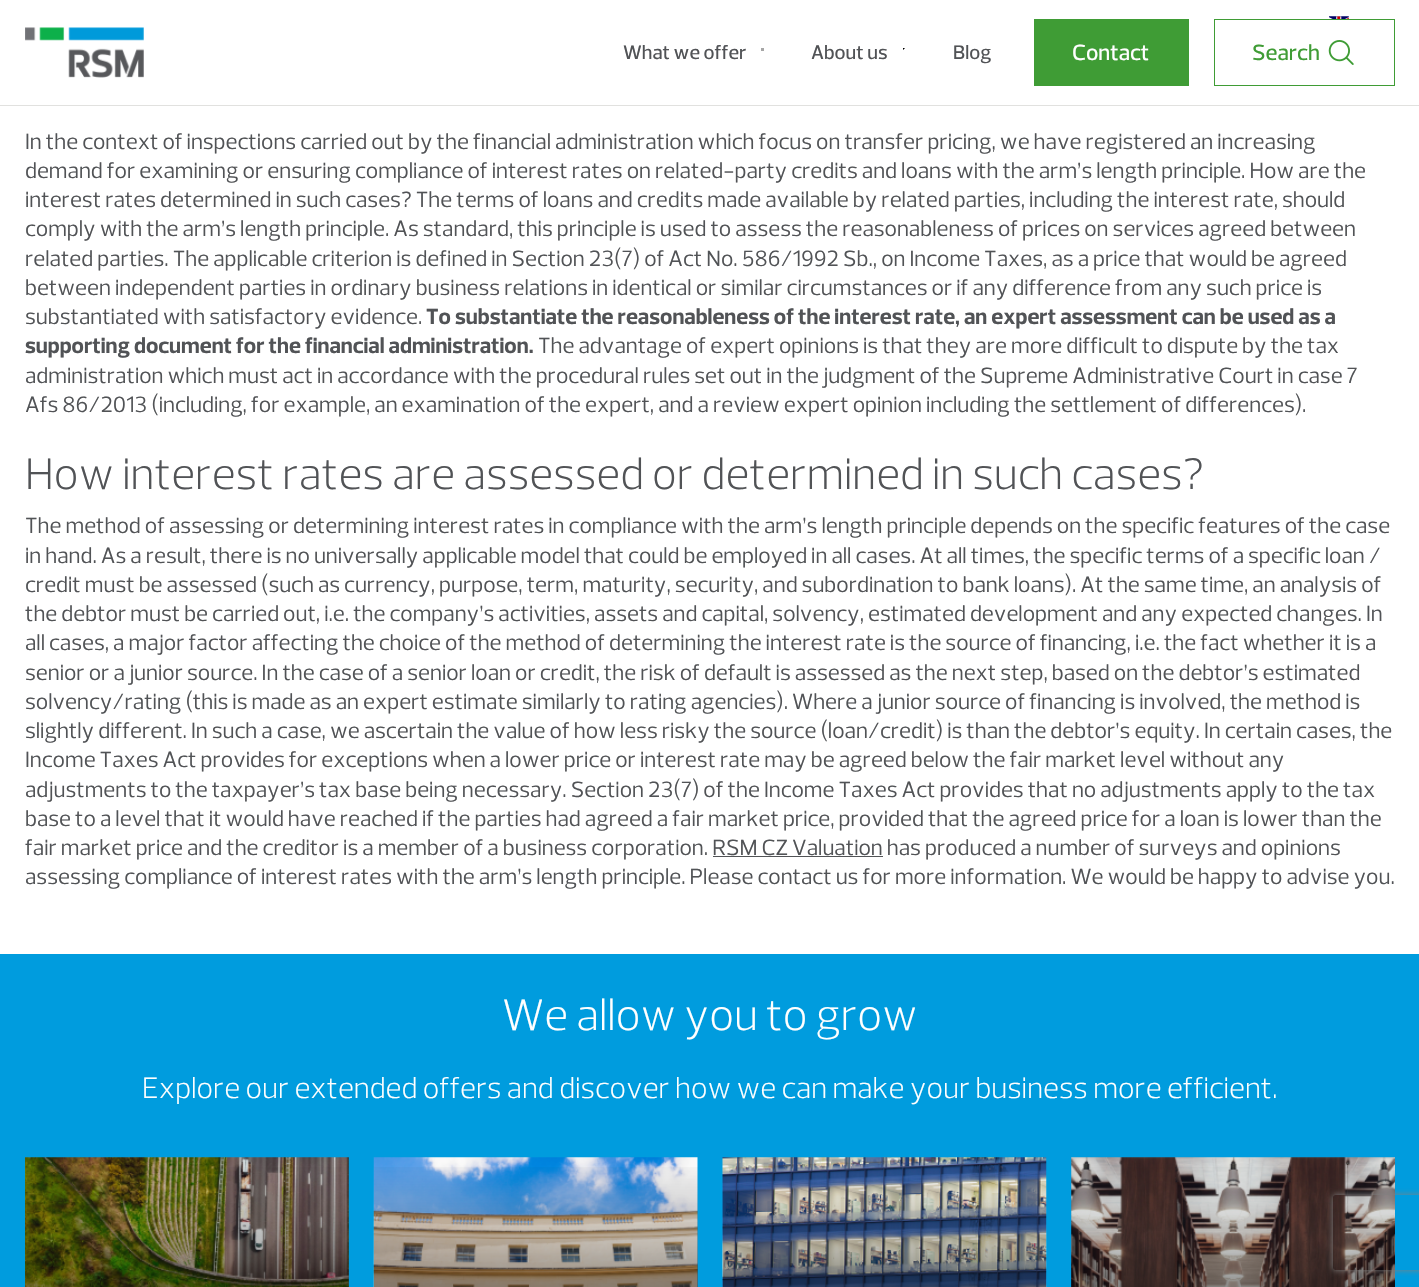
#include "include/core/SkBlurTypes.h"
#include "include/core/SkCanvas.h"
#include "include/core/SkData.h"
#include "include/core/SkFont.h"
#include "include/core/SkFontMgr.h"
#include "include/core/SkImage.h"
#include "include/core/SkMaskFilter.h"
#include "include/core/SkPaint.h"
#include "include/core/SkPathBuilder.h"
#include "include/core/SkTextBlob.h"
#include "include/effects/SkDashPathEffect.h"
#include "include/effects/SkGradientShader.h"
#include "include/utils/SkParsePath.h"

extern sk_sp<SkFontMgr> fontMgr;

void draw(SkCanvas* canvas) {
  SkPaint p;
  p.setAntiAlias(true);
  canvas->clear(SK_ColorWHITE);
  p.setColor(SkColorSetRGB(225, 225, 223));
  canvas->drawRect(SkRect::MakeLTRB(0, 105, 1419, 106), p);
  canvas->drawImageRect(SkImages::DeferredFromEncodedData(SkData::MakeFromFileName("images/1.png")), SkRect::MakeLTRB(1329, 16, 1349, 19), SkSamplingOptions());
  canvas->drawImageRect(SkImages::DeferredFromEncodedData(SkData::MakeFromFileName("images/2.png")), SkRect::MakeLTRB(25, 27, 144, 78), SkSamplingOptions());
  p.setColor(SkColorSetRGB(166, 166, 166));
  canvas->drawRect(SkRect::MakeLTRB(761, 48, 764, 51), p);
  canvas->drawImageRect(SkImages::DeferredFromEncodedData(SkData::MakeFromFileName("images/3.png")), SkRect::MakeLTRB(903, 48, 905, 50), SkSamplingOptions());
  p.setColor(SkColorSetRGB(63, 156, 53));
  canvas->drawRect(SkRect::MakeLTRB(1034, 19, 1189, 86), p);
  p.setStyle(SkPaint::kStroke_Style);
  p.setStrokeWidth(1);
  canvas->drawRect(SkRect::MakeLTRB(1214.5f, 19.5f, 1394.5f, 85.5f), p);
  canvas->drawImageRect(SkImages::DeferredFromEncodedData(SkData::MakeFromFileName("images/4.png")), SkRect::MakeLTRB(1328, 40, 1354, 65), SkSamplingOptions());
  p.setStyle(SkPaint::kFill_Style);
  p.setColor(SkColorSetRGB(81, 83, 86));
  canvas->drawRect(SkRect::MakeLTRB(713, 856, 883, 857), p);
  p.setColor(SkColorSetRGB(0, 156, 222));
  canvas->drawRect(SkRect::MakeLTRB(0, 954, 1419, 1287), p);
  canvas->drawImageRect(SkImages::DeferredFromEncodedData(SkData::MakeFromFileName("images/5.png")), SkRect::MakeLTRB(25, 1157, 349, 1287), SkSamplingOptions());
  {
    const SkColor colors[] = {SkColorSetARGB(153, 0, 0, 0), SkColorSetARGB(51, 0, 0, 0), SkColorSetARGB(0, 0, 0, 0)};
    const float stops[] = {0.45f, 0.75f, 1};
    const SkPoint ends[] = {{187, 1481}, {187, 1158}};
    p.setShader(SkGradientShader::MakeLinear(ends, colors, stops, 3, SkTileMode::kClamp));
    p.setAlpha(255);
  }
  canvas->drawRect(SkRect::MakeLTRB(25, 1167, 349, 1287), p);
  canvas->drawImageRect(SkImages::DeferredFromEncodedData(SkData::MakeFromFileName("images/6.png")), SkRect::MakeLTRB(373, 1157, 698, 1287), SkSamplingOptions());
  {
    const SkColor colors[] = {SkColorSetARGB(153, 0, 0, 0), SkColorSetARGB(51, 0, 0, 0), SkColorSetARGB(0, 0, 0, 0)};
    const float stops[] = {0.45f, 0.75f, 1};
    const SkPoint ends[] = {{536, 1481}, {536, 1158}};
    p.setShader(SkGradientShader::MakeLinear(ends, colors, stops, 3, SkTileMode::kClamp));
    p.setAlpha(255);
  }
  canvas->drawRect(SkRect::MakeLTRB(374, 1167, 698, 1287), p);
  canvas->drawImageRect(SkImages::DeferredFromEncodedData(SkData::MakeFromFileName("images/7.png")), SkRect::MakeLTRB(722, 1157, 1047, 1287), SkSamplingOptions());
  canvas->drawImageRect(SkImages::DeferredFromEncodedData(SkData::MakeFromFileName("images/8.png")), SkRect::MakeLTRB(1071, 1157, 1395, 1287), SkSamplingOptions());
  {
    const SkColor colors[] = {SkColorSetARGB(153, 0, 0, 0), SkColorSetARGB(51, 0, 0, 0), SkColorSetARGB(0, 0, 0, 0)};
    const float stops[] = {0.45f, 0.75f, 1};
    const SkPoint ends[] = {{1233, 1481}, {1233, 1158}};
    p.setShader(SkGradientShader::MakeLinear(ends, colors, stops, 3, SkTileMode::kClamp));
    p.setAlpha(255);
  }
  canvas->drawRect(SkRect::MakeLTRB(1071, 1167, 1395, 1287), p);
  canvas->save();
  canvas->clipPath(SkPathBuilder(SkPathFillType::kEvenOdd).moveTo(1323, 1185).lineTo(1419, 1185).lineTo(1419, 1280).lineTo(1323, 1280).close().moveTo(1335.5f, 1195).lineTo(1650.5f, 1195).cubicTo(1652, 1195, 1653, 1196, 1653, 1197.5f).lineTo(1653, 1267.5f).cubicTo(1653, 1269, 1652, 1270, 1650.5f, 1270).lineTo(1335.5f, 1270).cubicTo(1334, 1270, 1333, 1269, 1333, 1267.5f).lineTo(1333, 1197.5f).cubicTo(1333, 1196, 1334, 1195, 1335.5f, 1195).close().detach(), true);
  p.setShader(nullptr);
  p.setColor(SkColorSetRGB(128, 128, 128));
  p.setMaskFilter(SkMaskFilter::MakeBlur(kNormal_SkBlurStyle, 3));
  canvas->drawRoundRect(SkRect::MakeLTRB(1333, 1195, 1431, 1270), 2.5f, 2.5f, p);
  p.setMaskFilter(nullptr);
  canvas->restore();
  SkFont font1(fontMgr->matchFamilyStyle("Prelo", SkFontStyle(500, SkFontStyle::kNormal_Width, SkFontStyle::kUpright_Slant)), 20);
  font1.setSubpixel(true);
  p.setColor(SkColorSetRGB(81, 83, 86));
  canvas->drawString("What we offer", 623, 59, font1, p);
  canvas->drawString("About us", 811, 59, font1, p);
  canvas->drawString("Blog", 953, 59, font1, p);
  SkFont font2(fontMgr->matchFamilyStyle("Prelo", SkFontStyle(500, SkFontStyle::kNormal_Width, SkFontStyle::kUpright_Slant)), 22.5f);
  font2.setSubpixel(true);
  p.setColor(SK_ColorWHITE);
  canvas->drawString("Contact", 1072, 60, font2, p);
  p.setColor(SkColorSetRGB(63, 156, 53));
  canvas->drawString("Search", 1252, 60, font2, p);
  SkFont font3(fontMgr->matchFamilyStyle("Prelo", SkFontStyle::Normal()), 22.5f);
  font3.setSubpixel(true);
  p.setColor(SkColorSetRGB(81, 83, 86));
  canvas->drawString("In the context of inspections carried out by the financial administration which focus on transfer pricing, we have registered an increasing", 25, 149, font3, p);
  canvas->drawString("demand for examining or ensuring compliance of interest rates on related-party credits and loans with the arm’s length principle. How are the", 25, 178, font3, p);
  canvas->drawString("interest rates determined in such cases? The terms of loans and credits made available by related parties, including the interest rate, should", 25, 207, font3, p);
  canvas->drawString("comply with the arm’s length principle. As standard, this principle is used to assess the reasonableness of prices on services agreed between", 25, 236, font3, p);
  canvas->drawString("related parties. The applicable criterion is defined in Section 23(7) of Act No. 586/1992 Sb., on Income Taxes, as a price that would be agreed", 25, 266, font3, p);
  canvas->drawString("between independent parties in ordinary business relations in identical or similar circumstances or if any difference from any such price is", 25, 295, font3, p);
  canvas->drawString("substantiated with satisfactory evidence.", 25, 324, font3, p);
  SkFont font4(fontMgr->matchFamilyStyle("Prelo", SkFontStyle::Bold()), 22.5f);
  font4.setSubpixel(true);
  canvas->drawString("To substantiate the reasonableness of the interest rate, an expert assessment can be used as a", 426, 324, font4, p);
  canvas->drawString("supporting document for the financial administration.", 25, 353, font4, p);
  canvas->drawString("The advantage of expert opinions is that they are more difficult to dispute by the tax", 538, 353, font3, p);
  canvas->drawString("administration which must act in accordance with the procedural rules set out in the judgment of the Supreme Administrative Court in case 7", 25, 383, font3, p);
  canvas->drawString("Afs 86/2013 (including, for example, an examination of the expert, and a review expert opinion including the settlement of differences).", 25, 412, font3, p);
  SkFont font5(fontMgr->matchFamilyStyle("Prelo", SkFontStyle(300, SkFontStyle::kNormal_Width, SkFontStyle::kUpright_Slant)), 45);
  font5.setSubpixel(true);
  canvas->drawString("How interest rates are assessed or determined in such cases?", 25, 489, font5, p);
  canvas->drawString("The method of assessing or determining interest rates in compliance with the arm’s length principle depends on the specific features of the case", 25, 533, font3, p);
  canvas->drawString("in hand. As a result, there is no universally applicable model that could be employed in all cases. At all times, the specific terms of a specific loan /", 25, 563, font3, p);
  canvas->drawString("credit must be assessed (such as currency, purpose, term, maturity, security, and subordination to bank loans). At the same time, an analysis of", 25, 592, font3, p);
  canvas->drawString("the debtor must be carried out, i.e. the company’s activities, assets and capital, solvency, estimated development and any expected changes. In", 25, 621, font3, p);
  canvas->drawString("all cases, a major factor affecting the choice of the method of determining the interest rate is the source of financing, i.e. the fact whether it is a", 25, 650, font3, p);
  canvas->drawString("senior or a junior source. In the case of a senior loan or credit, the risk of default is assessed as the next step, based on the debtor’s estimated", 25, 680, font3, p);
  canvas->drawString("solvency/rating (this is made as an expert estimate similarly to rating agencies). Where a junior source of financing is involved, the method is", 25, 709, font3, p);
  canvas->drawString("slightly different. In such a case, we ascertain the value of how less risky the source (loan/credit) is than the debtor’s equity. In certain cases, the", 25, 738, font3, p);
  canvas->drawString("Income Taxes Act provides for exceptions when a lower price or interest rate may be agreed below the fair market level without any", 25, 767, font3, p);
  canvas->drawString("adjustments to the taxpayer’s tax base being necessary. Section 23(7) of the Income Taxes Act provides that no adjustments apply to the tax", 25, 797, font3, p);
  canvas->drawString("base to a level that it would have reached if the parties had agreed a fair market price, provided that the agreed price for a loan is lower than the", 25, 826, font3, p);
  canvas->drawString("fair market price and the creditor is a member of a business corporation. RSM CZ Valuation has produced a number of surveys and opinions", 25, 855, font3, p);
  canvas->drawString("assessing compliance of interest rates with the arm’s length principle. Please contact us for more information. We would be happy to advise you.", 25, 884, font3, p);
  p.setColor(SK_ColorWHITE);
  canvas->drawString("We allow you to grow", 502, 1030, font5, p);
  SkFont font6(fontMgr->matchFamilyStyle("Prelo", SkFontStyle(300, SkFontStyle::kNormal_Width, SkFontStyle::kUpright_Slant)), 30);
  font6.setSubpixel(true);
  canvas->drawString("Explore our extended offers and discover how we can make your business more efficient.", 142, 1098, font6, p);
}
